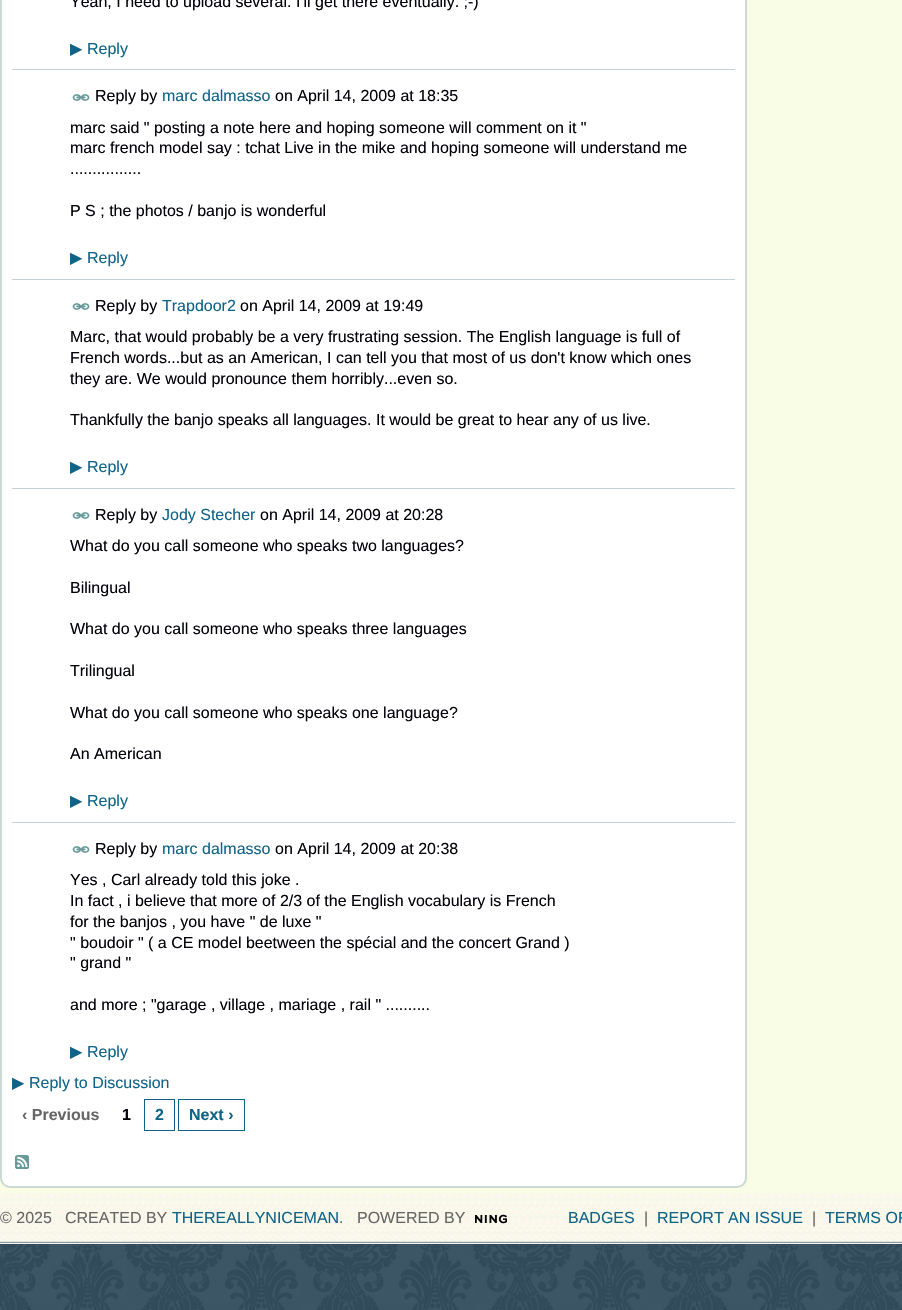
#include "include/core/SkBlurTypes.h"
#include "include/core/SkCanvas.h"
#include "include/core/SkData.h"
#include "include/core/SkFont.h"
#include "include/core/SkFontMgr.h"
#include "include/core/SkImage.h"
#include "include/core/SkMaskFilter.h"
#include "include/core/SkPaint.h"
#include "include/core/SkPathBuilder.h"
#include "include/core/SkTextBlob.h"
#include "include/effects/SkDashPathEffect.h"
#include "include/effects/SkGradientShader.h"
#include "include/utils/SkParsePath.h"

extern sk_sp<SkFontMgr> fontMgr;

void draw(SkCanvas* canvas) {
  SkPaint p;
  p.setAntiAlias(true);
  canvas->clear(SkColorSetRGB(58, 88, 107));
  canvas->drawImageRect(SkImages::DeferredFromEncodedData(SkData::MakeFromFileName("images/1.png")), SkRect::MakeLTRB(0, 1244, 902, 1310), SkSamplingOptions());
  p.setColor(SkColorSetRGB(249, 253, 230));
  canvas->drawRect(SkRect::MakeLTRB(0, 0, 902, 1193), p);
  p.setColor(SK_ColorWHITE);
  canvas->drawRoundRect(SkRect::MakeLTRB(1, -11, 746, 1187), 9, 9, p);
  p.setStyle(SkPaint::kStroke_Style);
  p.setStrokeWidth(2);
  p.setColor(SkColorSetRGB(205, 217, 211));
  canvas->drawRoundRect(SkRect::MakeLTRB(1, -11, 746, 1187), 9, 9, p);
  p.setStyle(SkPaint::kFill_Style);
  p.setColor(SkColorSetRGB(196, 208, 213));
  canvas->drawRect(SkRect::MakeLTRB(12, 69, 735, 70), p);
  canvas->drawImageRect(SkImages::DeferredFromEncodedData(SkData::MakeFromFileName("images/2.png")), SkRect::MakeLTRB(72, 94, 90, 101), SkSamplingOptions());
  canvas->drawRect(SkRect::MakeLTRB(12, 279, 735, 280), p);
  canvas->drawImageRect(SkImages::DeferredFromEncodedData(SkData::MakeFromFileName("images/2.png")), SkRect::MakeLTRB(72, 303, 90, 310), SkSamplingOptions());
  canvas->drawRect(SkRect::MakeLTRB(12, 488, 735, 489), p);
  canvas->drawImageRect(SkImages::DeferredFromEncodedData(SkData::MakeFromFileName("images/2.png")), SkRect::MakeLTRB(72, 512, 90, 519), SkSamplingOptions());
  canvas->drawRect(SkRect::MakeLTRB(12, 822, 735, 823), p);
  canvas->drawImageRect(SkImages::DeferredFromEncodedData(SkData::MakeFromFileName("images/2.png")), SkRect::MakeLTRB(72, 846, 90, 853), SkSamplingOptions());
  p.setStyle(SkPaint::kStroke_Style);
  p.setStrokeWidth(1);
  p.setColor(SkColorSetRGB(15, 99, 135));
  canvas->drawRect(SkRect::MakeLTRB(144.5f, 1099.5f, 174.5f, 1130.5f), p);
  canvas->drawRect(SkRect::MakeLTRB(178.5f, 1099.5f, 244.5f, 1130.5f), p);
  canvas->drawImageRect(SkImages::DeferredFromEncodedData(SkData::MakeFromFileName("images/3.png")), SkRect::MakeLTRB(15, 1155, 29, 1169), SkSamplingOptions());
  canvas->drawImageRect(SkImages::DeferredFromEncodedData(SkData::MakeFromFileName("images/4.png")), SkRect::MakeLTRB(0, 1193, 902, 1244), SkSamplingOptions());
  canvas->drawImageRect(SkImages::DeferredFromEncodedData(SkData::MakeFromFileName("images/5.png")), SkRect::MakeLTRB(475, 1214, 507, 1224), SkSamplingOptions());
  SkFont font1(fontMgr->matchFamilyStyle("Liberation Sans", SkFontStyle::Normal()), 16);
  font1.setSubpixel(true);
  p.setStyle(SkPaint::kFill_Style);
  p.setColor(SkColorSetRGB(1, 1, 10));
  canvas->drawString("Yeah, I need to upload several. I'll get there eventually. ;-)", 70, 7, font1, p);
  SkFont font2(fontMgr->matchFamilyStyle("DejaVu Sans", SkFontStyle::Normal()), 16);
  font2.setSubpixel(true);
  p.setColor(SkColorSetRGB(15, 99, 135));
  canvas->drawString("▶", 70, 54, font2, p);
  canvas->drawString("Reply", 87, 54, font1, p);
  p.setColor(SkColorSetRGB(1, 1, 10));
  canvas->drawString("Reply by", 95, 101, font1, p);
  p.setColor(SkColorSetRGB(15, 99, 135));
  canvas->drawString("marc dalmasso", 162, 101, font1, p);
  p.setColor(SkColorSetRGB(1, 1, 10));
  canvas->drawString("on April 14, 2009 at 18:35", 275, 101, font1, p);
  canvas->drawString("marc said \" posting a note here and hoping someone will comment on it \"", 70, 133, font1, p);
  canvas->drawString("marc french model say : tchat Live in the mike and hoping someone will understand me", 70, 153, font1, p);
  canvas->drawString("................", 70, 174, font1, p);
  canvas->drawString("P S ; the photos / banjo is wonderful", 70, 216, font1, p);
  p.setColor(SkColorSetRGB(15, 99, 135));
  canvas->drawString("▶", 70, 263, font2, p);
  canvas->drawString("Reply", 87, 263, font1, p);
  p.setColor(SkColorSetRGB(1, 1, 10));
  canvas->drawString("Reply by", 95, 311, font1, p);
  p.setColor(SkColorSetRGB(15, 99, 135));
  canvas->drawString("Trapdoor2", 162, 311, font1, p);
  p.setColor(SkColorSetRGB(1, 1, 10));
  canvas->drawString("on April 14, 2009 at 19:49", 240, 311, font1, p);
  canvas->drawString("Marc, that would probably be a very frustrating session. The English language is full of", 70, 342, font1, p);
  canvas->drawString("French words...but as an American, I can tell you that most of us don't know which ones", 70, 363, font1, p);
  canvas->drawString("they are. We would pronounce them horribly...even so.", 70, 384, font1, p);
  canvas->drawString("Thankfully the banjo speaks all languages. It would be great to hear any of us live.", 70, 425, font1, p);
  p.setColor(SkColorSetRGB(15, 99, 135));
  canvas->drawString("▶", 70, 472, font2, p);
  canvas->drawString("Reply", 87, 472, font1, p);
  p.setColor(SkColorSetRGB(1, 1, 10));
  canvas->drawString("Reply by", 95, 520, font1, p);
  p.setColor(SkColorSetRGB(15, 99, 135));
  canvas->drawString("Jody Stecher", 162, 520, font1, p);
  p.setColor(SkColorSetRGB(1, 1, 10));
  canvas->drawString("on April 14, 2009 at 20:28", 260, 520, font1, p);
  canvas->drawString("What do you call someone who speaks two languages?", 70, 551, font1, p);
  canvas->drawString("Bilingual", 70, 593, font1, p);
  canvas->drawString("What do you call someone who speaks three languages", 70, 634, font1, p);
  canvas->drawString("Trilingual", 70, 676, font1, p);
  canvas->drawString("What do you call someone who speaks one language?", 70, 718, font1, p);
  canvas->drawString("An American", 70, 759, font1, p);
  p.setColor(SkColorSetRGB(15, 99, 135));
  canvas->drawString("▶", 70, 806, font2, p);
  canvas->drawString("Reply", 87, 806, font1, p);
  p.setColor(SkColorSetRGB(1, 1, 10));
  canvas->drawString("Reply by", 95, 854, font1, p);
  p.setColor(SkColorSetRGB(15, 99, 135));
  canvas->drawString("marc dalmasso", 162, 854, font1, p);
  p.setColor(SkColorSetRGB(1, 1, 10));
  canvas->drawString("on April 14, 2009 at 20:38", 275, 854, font1, p);
  canvas->drawString("Yes , Carl already told this joke .", 70, 885, font1, p);
  canvas->drawString("In fact , i believe that more of 2/3 of the English vocabulary is French", 70, 906, font1, p);
  canvas->drawString("for the banjos , you have \" de luxe \"", 70, 927, font1, p);
  canvas->drawString("\" boudoir \" ( a CE model beetween the spécial and the concert Grand )", 70, 948, font1, p);
  canvas->drawString("\" grand \"", 70, 968, font1, p);
  canvas->drawString("and more ; \"garage , village , mariage , rail \" ..........", 70, 1010, font1, p);
  p.setColor(SkColorSetRGB(15, 99, 135));
  canvas->drawString("▶", 70, 1057, font2, p);
  canvas->drawString("Reply", 87, 1057, font1, p);
  canvas->drawString("▶", 12, 1088, font2, p);
  canvas->drawString("Reply to Discussion", 29, 1088, font1, p);
  SkFont font3(fontMgr->matchFamilyStyle("Liberation Sans", SkFontStyle::Bold()), 16);
  font3.setSubpixel(true);
  p.setColor(SkColorSetRGB(102, 102, 102));
  canvas->drawString("‹ Previous", 22, 1120, font3, p);
  p.setColor(SkColorSetRGB(1, 1, 10));
  canvas->drawString("1", 122, 1120, font3, p);
  p.setColor(SkColorSetRGB(15, 99, 135));
  canvas->drawString("2", 155, 1120, font3, p);
  canvas->drawString("Next ›", 189, 1120, font3, p);
  p.setColor(SkColorSetRGB(102, 102, 102));
  canvas->drawString("© 2025", 0, 1223, font1, p);
  canvas->drawString("CREATED BY", 65, 1223, font1, p);
  p.setColor(SkColorSetRGB(15, 99, 135));
  canvas->drawString("THEREALLYNICEMAN", 172, 1223, font1, p);
  p.setColor(SkColorSetRGB(102, 102, 102));
  canvas->drawString(".", 339, 1223, font1, p);
  canvas->drawString("POWERED BY", 357, 1223, font1, p);
  p.setColor(SkColorSetRGB(15, 99, 135));
  canvas->drawString("BADGES", 568, 1223, font1, p);
  p.setColor(SkColorSetRGB(102, 102, 102));
  canvas->drawString("|", 644, 1223, font1, p);
  p.setColor(SkColorSetRGB(15, 99, 135));
  canvas->drawString("REPORT AN ISSUE", 657, 1223, font1, p);
  p.setColor(SkColorSetRGB(102, 102, 102));
  canvas->drawString("|", 812, 1223, font1, p);
  p.setColor(SkColorSetRGB(15, 99, 135));
  canvas->drawString("TERMS OF", 825, 1223, font1, p);
}
